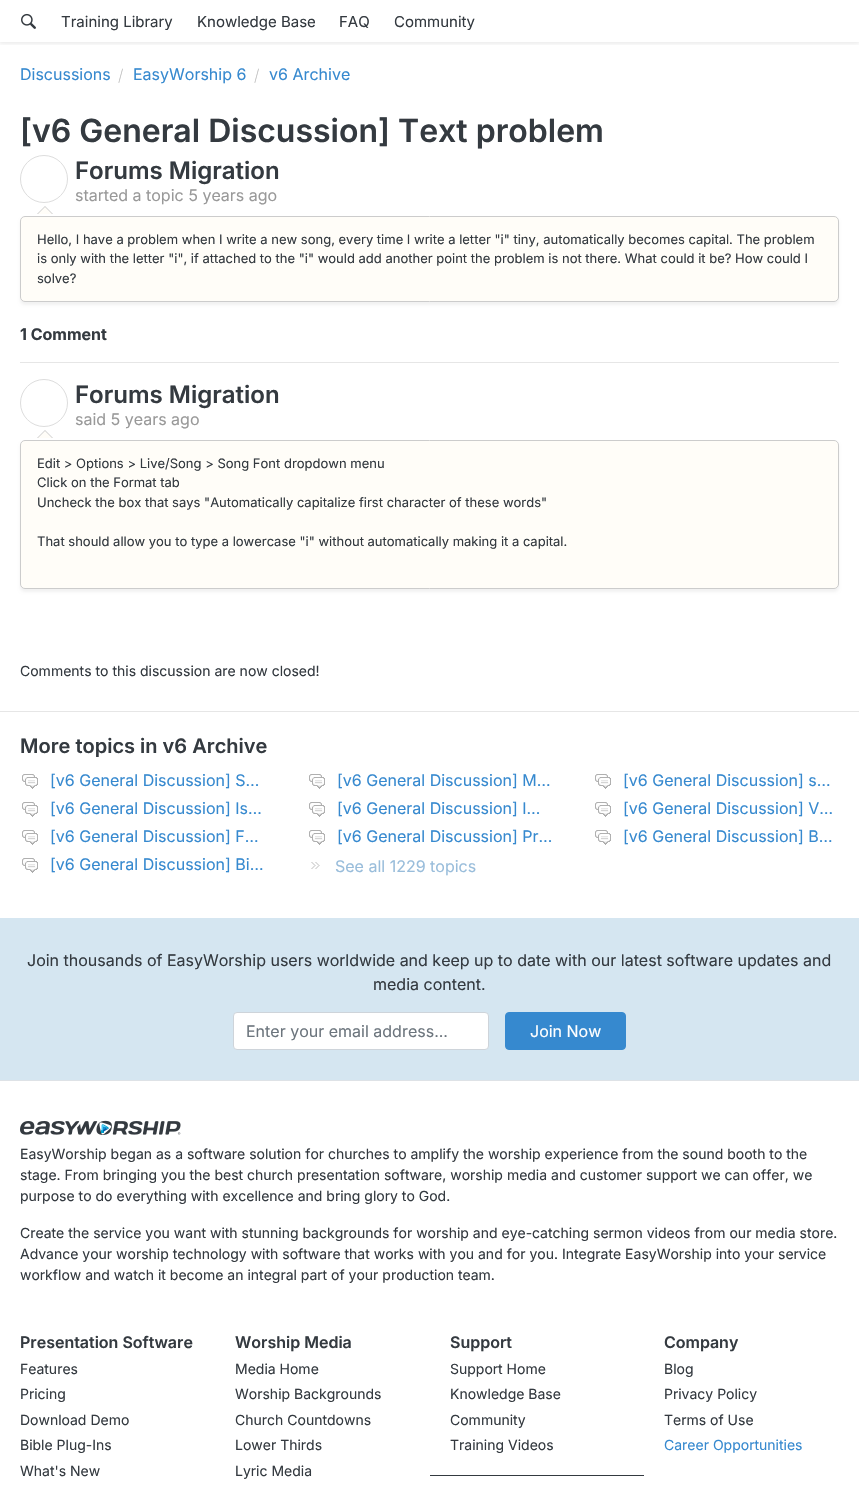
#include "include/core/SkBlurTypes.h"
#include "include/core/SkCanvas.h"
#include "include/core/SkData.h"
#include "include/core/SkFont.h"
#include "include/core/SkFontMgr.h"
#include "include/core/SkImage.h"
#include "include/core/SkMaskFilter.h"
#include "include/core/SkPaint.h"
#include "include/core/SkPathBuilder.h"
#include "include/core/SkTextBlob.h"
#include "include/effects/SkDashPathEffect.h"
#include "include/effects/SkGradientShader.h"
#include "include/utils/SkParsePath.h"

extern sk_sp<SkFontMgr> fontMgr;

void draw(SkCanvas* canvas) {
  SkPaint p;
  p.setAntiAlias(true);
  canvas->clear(SK_ColorWHITE);
  canvas->save();
  canvas->clipRect(SkRect::MakeLTRB(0, 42, 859, 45));
  p.setColor(SkColorSetARGB(26, 0, 0, 0));
  p.setMaskFilter(SkMaskFilter::MakeBlur(kNormal_SkBlurStyle, 2.5f));
  canvas->drawRect(SkRect::MakeLTRB(-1, -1, 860, 43), p);
  p.setMaskFilter(nullptr);
  canvas->restore();
  canvas->drawImageRect(SkImages::DeferredFromEncodedData(SkData::MakeFromFileName("images/1.png")), SkRect::MakeLTRB(21, 13, 36, 29), SkSamplingOptions());
  p.setStyle(SkPaint::kStroke_Style);
  p.setStrokeWidth(1);
  p.setColor(SkColorSetRGB(221, 221, 221));
  canvas->drawCircle(44, 179, 23.5f, p);
  p.setStyle(SkPaint::kFill_Style);
  p.setColor(SkColorSetARGB(13, 0, 0, 0));
  p.setMaskFilter(SkMaskFilter::MakeBlur(kNormal_SkBlurStyle, 1.5f));
  canvas->drawRoundRect(SkRect::MakeLTRB(20, 219, 839, 305), 5, 5, p);
  p.setMaskFilter(nullptr);
  p.setColor(SkColorSetRGB(204, 204, 204));
  canvas->drawPath(SkPathBuilder().moveTo(53, 214).lineTo(37, 214).lineTo(45, 206).close().detach(), p);
  p.setColor(SkColorSetRGB(255, 253, 248));
  canvas->drawPath(SkPathBuilder().moveTo(52, 214).lineTo(38, 214).lineTo(45, 207).close().detach(), p);
  canvas->drawRoundRect(SkRect::MakeLTRB(20.5f, 216.5f, 838.5f, 301.5f), 4.5f, 4.5f, p);
  p.setStyle(SkPaint::kStroke_Style);
  p.setColor(SkColorSetRGB(204, 204, 204));
  canvas->drawRoundRect(SkRect::MakeLTRB(20.5f, 216.5f, 838.5f, 301.5f), 4.5f, 4.5f, p);
  p.setStyle(SkPaint::kFill_Style);
  p.setColor(SkColorSetRGB(230, 230, 230));
  canvas->drawRect(SkRect::MakeLTRB(20, 362, 839, 363), p);
  p.setStyle(SkPaint::kStroke_Style);
  p.setColor(SkColorSetRGB(221, 221, 221));
  canvas->drawCircle(44, 403, 23.5f, p);
  p.setStyle(SkPaint::kFill_Style);
  p.setColor(SkColorSetARGB(13, 0, 0, 0));
  p.setMaskFilter(SkMaskFilter::MakeBlur(kNormal_SkBlurStyle, 1.5f));
  canvas->drawRoundRect(SkRect::MakeLTRB(20, 443, 839, 592), 5, 5, p);
  p.setMaskFilter(nullptr);
  p.setColor(SkColorSetRGB(204, 204, 204));
  canvas->drawPath(SkPathBuilder().moveTo(53, 438).lineTo(37, 438).lineTo(45, 430).close().detach(), p);
  p.setColor(SkColorSetRGB(255, 253, 248));
  canvas->drawPath(SkPathBuilder().moveTo(52, 438).lineTo(38, 438).lineTo(45, 431).close().detach(), p);
  canvas->drawRoundRect(SkRect::MakeLTRB(20.5f, 440.5f, 838.5f, 588.5f), 4.5f, 4.5f, p);
  p.setStyle(SkPaint::kStroke_Style);
  p.setColor(SkColorSetRGB(204, 204, 204));
  canvas->drawRoundRect(SkRect::MakeLTRB(20.5f, 440.5f, 838.5f, 588.5f), 4.5f, 4.5f, p);
  p.setStyle(SkPaint::kFill_Style);
  p.setColor(SkColorSetRGB(230, 230, 230));
  canvas->drawRect(SkRect::MakeLTRB(0, 711, 859, 712), p);
  canvas->drawImageRect(SkImages::DeferredFromEncodedData(SkData::MakeFromFileName("images/2.png")), SkRect::MakeLTRB(22, 774, 38, 789), SkSamplingOptions());
  canvas->drawImageRect(SkImages::DeferredFromEncodedData(SkData::MakeFromFileName("images/2.png")), SkRect::MakeLTRB(309, 774, 325, 789), SkSamplingOptions());
  canvas->drawImageRect(SkImages::DeferredFromEncodedData(SkData::MakeFromFileName("images/2.png")), SkRect::MakeLTRB(595, 774, 611, 789), SkSamplingOptions());
  canvas->drawImageRect(SkImages::DeferredFromEncodedData(SkData::MakeFromFileName("images/2.png")), SkRect::MakeLTRB(22, 802, 38, 817), SkSamplingOptions());
  canvas->drawImageRect(SkImages::DeferredFromEncodedData(SkData::MakeFromFileName("images/2.png")), SkRect::MakeLTRB(309, 802, 325, 817), SkSamplingOptions());
  canvas->drawImageRect(SkImages::DeferredFromEncodedData(SkData::MakeFromFileName("images/2.png")), SkRect::MakeLTRB(595, 802, 611, 817), SkSamplingOptions());
  canvas->drawImageRect(SkImages::DeferredFromEncodedData(SkData::MakeFromFileName("images/2.png")), SkRect::MakeLTRB(22, 830, 38, 845), SkSamplingOptions());
  canvas->drawImageRect(SkImages::DeferredFromEncodedData(SkData::MakeFromFileName("images/2.png")), SkRect::MakeLTRB(309, 830, 325, 845), SkSamplingOptions());
  canvas->drawImageRect(SkImages::DeferredFromEncodedData(SkData::MakeFromFileName("images/2.png")), SkRect::MakeLTRB(595, 830, 611, 845), SkSamplingOptions());
  canvas->drawImageRect(SkImages::DeferredFromEncodedData(SkData::MakeFromFileName("images/2.png")), SkRect::MakeLTRB(22, 858, 38, 873), SkSamplingOptions());
  canvas->drawImageRect(SkImages::DeferredFromEncodedData(SkData::MakeFromFileName("images/3.png")), SkRect::MakeLTRB(311, 862, 320, 869), SkSamplingOptions());
  p.setColor(SkColorSetRGB(213, 230, 241));
  canvas->drawRect(SkRect::MakeLTRB(0, 918, 859, 1080), p);
  p.setColor(SK_ColorWHITE);
  canvas->drawRoundRect(SkRect::MakeLTRB(233.5f, 1012.5f, 488.5f, 1049.5f), 3.5f, 3.5f, p);
  p.setStyle(SkPaint::kStroke_Style);
  p.setColor(SkColorSetRGB(206, 212, 218));
  canvas->drawRoundRect(SkRect::MakeLTRB(233.5f, 1012.5f, 488.5f, 1049.5f), 3.5f, 3.5f, p);
  p.setStyle(SkPaint::kFill_Style);
  p.setColor(SkColorSetRGB(54, 137, 207));
  canvas->drawRoundRect(SkRect::MakeLTRB(505.5f, 1012.5f, 625.5f, 1049.5f), 3.5f, 3.5f, p);
  p.setStyle(SkPaint::kStroke_Style);
  canvas->drawRoundRect(SkRect::MakeLTRB(505.5f, 1012.5f, 625.5f, 1049.5f), 3.5f, 3.5f, p);
  p.setStyle(SkPaint::kFill_Style);
  p.setColor(SkColorSetRGB(222, 226, 230));
  canvas->drawRect(SkRect::MakeLTRB(0, 1080, 859, 1081), p);
  canvas->drawImageRect(SkImages::DeferredFromEncodedData(SkData::MakeFromFileName("images/4.png")), SkRect::MakeLTRB(20, 1121, 35, 1135), SkSamplingOptions());
  canvas->drawImageRect(SkImages::DeferredFromEncodedData(SkData::MakeFromFileName("images/5.png")), SkRect::MakeLTRB(35, 1121, 50, 1135), SkSamplingOptions());
  canvas->drawImageRect(SkImages::DeferredFromEncodedData(SkData::MakeFromFileName("images/6.png")), SkRect::MakeLTRB(50, 1121, 65, 1135), SkSamplingOptions());
  canvas->drawImageRect(SkImages::DeferredFromEncodedData(SkData::MakeFromFileName("images/7.png")), SkRect::MakeLTRB(65, 1121, 80, 1135), SkSamplingOptions());
  canvas->drawImageRect(SkImages::DeferredFromEncodedData(SkData::MakeFromFileName("images/8.png")), SkRect::MakeLTRB(77, 1121, 98, 1135), SkSamplingOptions());
  canvas->drawImageRect(SkImages::DeferredFromEncodedData(SkData::MakeFromFileName("images/9.png")), SkRect::MakeLTRB(96, 1120, 112, 1135), SkSamplingOptions());
  canvas->drawImageRect(SkImages::DeferredFromEncodedData(SkData::MakeFromFileName("images/10.png")), SkRect::MakeLTRB(112, 1121, 128, 1135), SkSamplingOptions());
  canvas->drawImageRect(SkImages::DeferredFromEncodedData(SkData::MakeFromFileName("images/11.png")), SkRect::MakeLTRB(128, 1121, 143, 1135), SkSamplingOptions());
  canvas->drawImageRect(SkImages::DeferredFromEncodedData(SkData::MakeFromFileName("images/12.png")), SkRect::MakeLTRB(142, 1121, 159, 1135), SkSamplingOptions());
  canvas->drawImageRect(SkImages::DeferredFromEncodedData(SkData::MakeFromFileName("images/13.png")), SkRect::MakeLTRB(159, 1121, 165, 1135), SkSamplingOptions());
  canvas->drawImageRect(SkImages::DeferredFromEncodedData(SkData::MakeFromFileName("images/14.png")), SkRect::MakeLTRB(165, 1121, 181, 1135), SkSamplingOptions());
  canvas->drawImageRect(SkImages::DeferredFromEncodedData(SkData::MakeFromFileName("images/16.png")), SkRect::MakeLTRB(102, 1124, 109, 1130), SkSamplingOptions());
  p.setColor(SkColorSetARGB(252, 0, 160, 203));
  canvas->drawRect(SkRect::MakeLTRB(101, 1130, 104, 1133), p);
  canvas->drawImageRect(SkImages::DeferredFromEncodedData(SkData::MakeFromFileName("images/15.png")), SkRect::MakeLTRB(101, 1124, 107, 1131), SkSamplingOptions());
  p.setColor(SkColorSetARGB(252, 17, 146, 209));
  canvas->drawRect(SkRect::MakeLTRB(103, 1127, 106, 1130), p);
  p.setColor(SkColorSetRGB(0, 98, 175));
  canvas->drawPath(SkPathBuilder().moveTo(106, 1128).lineTo(103, 1130).lineTo(103, 1132).lineTo(108, 1129).close().detach(), p);
  canvas->drawImageRect(SkImages::DeferredFromEncodedData(SkData::MakeFromFileName("images/17.png")), SkRect::MakeLTRB(177, 1132, 181, 1135), SkSamplingOptions());
  p.setColor(SkColorSetRGB(52, 58, 64));
  canvas->drawRect(SkRect::MakeLTRB(430, 1475, 644, 1476), p);
  SkFont font1(fontMgr->matchFamilyStyle("Inter", SkFontStyle::Normal()), 15);
  font1.setSubpixel(true);
  canvas->drawString("Training Library", 61, 27, font1, p);
  canvas->drawString("Knowledge Base", 197, 27, font1, p);
  canvas->drawString("FAQ", 339, 27, font1, p);
  canvas->drawString("Community", 394, 27, font1, p);
  SkFont font2(fontMgr->matchFamilyStyle("Inter", SkFontStyle::Normal()), 16);
  font2.setSubpixel(true);
  p.setColor(SkColorSetRGB(54, 137, 207));
  canvas->drawString("Discussions", 20, 80, font2, p);
  SkFont font3(fontMgr->matchFamilyStyle("Inter", SkFontStyle(200, SkFontStyle::kNormal_Width, SkFontStyle::kUpright_Slant)), 16);
  font3.setSubpixel(true);
  p.setColor(SkColorSetRGB(187, 187, 187));
  canvas->drawString("/", 118, 81, font3, p);
  p.setColor(SkColorSetRGB(54, 137, 207));
  canvas->drawString("EasyWorship 6", 133, 80, font2, p);
  p.setColor(SkColorSetRGB(187, 187, 187));
  canvas->drawString("/", 254, 81, font3, p);
  p.setColor(SkColorSetRGB(54, 137, 207));
  canvas->drawString("v6 Archive", 269, 80, font2, p);
  SkFont font4(fontMgr->matchFamilyStyle("Inter", SkFontStyle(600, SkFontStyle::kNormal_Width, SkFontStyle::kUpright_Slant)), 32);
  font4.setSubpixel(true);
  p.setColor(SkColorSetRGB(52, 58, 64));
  canvas->drawString("[v6 General Discussion] Text problem", 20, 142, font4, p);
  SkFont font5(fontMgr->matchFamilyStyle("Inter", SkFontStyle(600, SkFontStyle::kNormal_Width, SkFontStyle::kUpright_Slant)), 24);
  font5.setSubpixel(true);
  canvas->drawString("Forums Migration", 75, 179, font5, p);
  p.setColor(SkColorSetRGB(153, 153, 153));
  canvas->drawString("started a topic 5 years ago", 75, 201, font2, p);
  SkFont font6(fontMgr->matchFamilyStyle("Inter", SkFontStyle::Normal()), 13);
  font6.setSubpixel(true);
  p.setColor(SkColorSetRGB(52, 58, 64));
  canvas->drawString("Hello, I have a problem when I write a new song, every time I write a letter \"i\" tiny, automatically becomes capital. The problem", 37, 244, font6, p);
  canvas->drawString("is only with the letter \"i\", if attached to the \"i\" would add another point the problem is not there. What could it be? How could I", 37, 263, font6, p);
  canvas->drawString("solve?", 37, 283, font6, p);
  SkFont font7(fontMgr->matchFamilyStyle("Inter", SkFontStyle::Bold()), 16);
  font7.setSubpixel(true);
  canvas->drawString("1 Comment", 20, 340, font7, p);
  canvas->drawString("Forums Migration", 75, 403, font5, p);
  p.setColor(SkColorSetRGB(153, 153, 153));
  canvas->drawString("said 5 years ago", 75, 425, font2, p);
  p.setColor(SkColorSetRGB(52, 58, 64));
  canvas->drawString("Edit > Options > Live/Song > Song Font dropdown menu", 37, 468, font6, p);
  canvas->drawString("Click on the Format tab", 37, 487, font6, p);
  canvas->drawString("Uncheck the box that says \"Automatically capitalize first character of these words\"", 37, 507, font6, p);
  canvas->drawString("That should allow you to type a lowercase \"i\" without automatically making it a capital.", 37, 546, font6, p);
  SkFont font8(fontMgr->matchFamilyStyle("Inter", SkFontStyle::Normal()), 14);
  font8.setSubpixel(true);
  canvas->drawString("Comments to this discussion are now closed!", 20, 676, font8, p);
  SkFont font9(fontMgr->matchFamilyStyle("Inter", SkFontStyle(600, SkFontStyle::kNormal_Width, SkFontStyle::kUpright_Slant)), 20);
  font9.setSubpixel(true);
  canvas->drawString("More topics in v6 Archive", 20, 753, font9, p);
  p.setColor(SkColorSetRGB(54, 137, 207));
  canvas->drawString("[v6 General Discussion] S…", 50, 786, font2, p);
  canvas->drawString("[v6 General Discussion] M…", 337, 786, font2, p);
  canvas->drawString("[v6 General Discussion] s…", 623, 786, font2, p);
  canvas->drawString("[v6 General Discussion] Is…", 50, 814, font2, p);
  canvas->drawString("[v6 General Discussion] I…", 337, 814, font2, p);
  canvas->drawString("[v6 General Discussion] V…", 623, 814, font2, p);
  canvas->drawString("[v6 General Discussion] F…", 50, 842, font2, p);
  canvas->drawString("[v6 General Discussion] Pr…", 337, 842, font2, p);
  canvas->drawString("[v6 General Discussion] B…", 623, 842, font2, p);
  canvas->drawString("[v6 General Discussion] Bi…", 50, 870, font2, p);
  p.setColor(SkColorSetRGB(153, 189, 219));
  canvas->drawString("See all 1229 topics", 335, 872, font2, p);
  p.setColor(SkColorSetRGB(52, 58, 64));
  canvas->drawString("Join thousands of EasyWorship users worldwide and keep up to date with our latest software updates and", 27, 966, font2, p);
  canvas->drawString("media content.", 373, 990, font2, p);
  p.setColor(SkColorSetRGB(108, 117, 125));
  canvas->drawString("Enter your email address...", 246, 1037, font2, p);
  p.setColor(SK_ColorWHITE);
  canvas->drawString("Join Now", 530, 1037, font2, p);
  p.setColor(SkColorSetRGB(52, 58, 64));
  canvas->drawString("EasyWorship began as a software solution for churches to amplify the worship experience from the sound booth to the", 20, 1159, font8, p);
  canvas->drawString("stage. From bringing you the best church presentation software, worship media and customer support we can offer, we", 20, 1180, font8, p);
  canvas->drawString("purpose to do everything with excellence and bring glory to God.", 20, 1201, font8, p);
  canvas->drawString("Create the service you want with stunning backgrounds for worship and eye-catching sermon videos from our media store.", 20, 1238, font8, p);
  canvas->drawString("Advance your worship technology with software that works with you and for you. Integrate EasyWorship into your service", 20, 1259, font8, p);
  canvas->drawString("workflow and watch it become an integral part of your production team.", 20, 1280, font8, p);
  SkFont font10(fontMgr->matchFamilyStyle("Inter", SkFontStyle(600, SkFontStyle::kNormal_Width, SkFontStyle::kUpright_Slant)), 16);
  font10.setSubpixel(true);
  canvas->drawString("Presentation Software", 20, 1348, font10, p);
  canvas->drawString("Features", 20, 1374, font8, p);
  canvas->drawString("Pricing", 20, 1399, font8, p);
  canvas->drawString("Download Demo", 20, 1425, font8, p);
  canvas->drawString("Bible Plug-Ins", 20, 1450, font8, p);
  canvas->drawString("What's New", 20, 1476, font8, p);
  canvas->drawString("Worship Media", 235, 1348, font10, p);
  canvas->drawString("Media Home", 235, 1374, font8, p);
  canvas->drawString("Worship Backgrounds", 235, 1399, font8, p);
  canvas->drawString("Church Countdowns", 235, 1425, font8, p);
  canvas->drawString("Lower Thirds", 235, 1450, font8, p);
  canvas->drawString("Lyric Media", 235, 1476, font8, p);
  canvas->drawString("Support", 450, 1348, font10, p);
  canvas->drawString("Support Home", 450, 1374, font8, p);
  canvas->drawString("Knowledge Base", 450, 1399, font8, p);
  canvas->drawString("Community", 450, 1425, font8, p);
  canvas->drawString("Training Videos", 450, 1450, font8, p);
  canvas->drawString("Company", 664, 1348, font10, p);
  canvas->drawString("Blog", 664, 1374, font8, p);
  canvas->drawString("Privacy Policy", 664, 1399, font8, p);
  canvas->drawString("Terms of Use", 664, 1425, font8, p);
  p.setColor(SkColorSetRGB(54, 137, 207));
  canvas->drawString("Career Opportunities", 664, 1450, font8, p);
}
